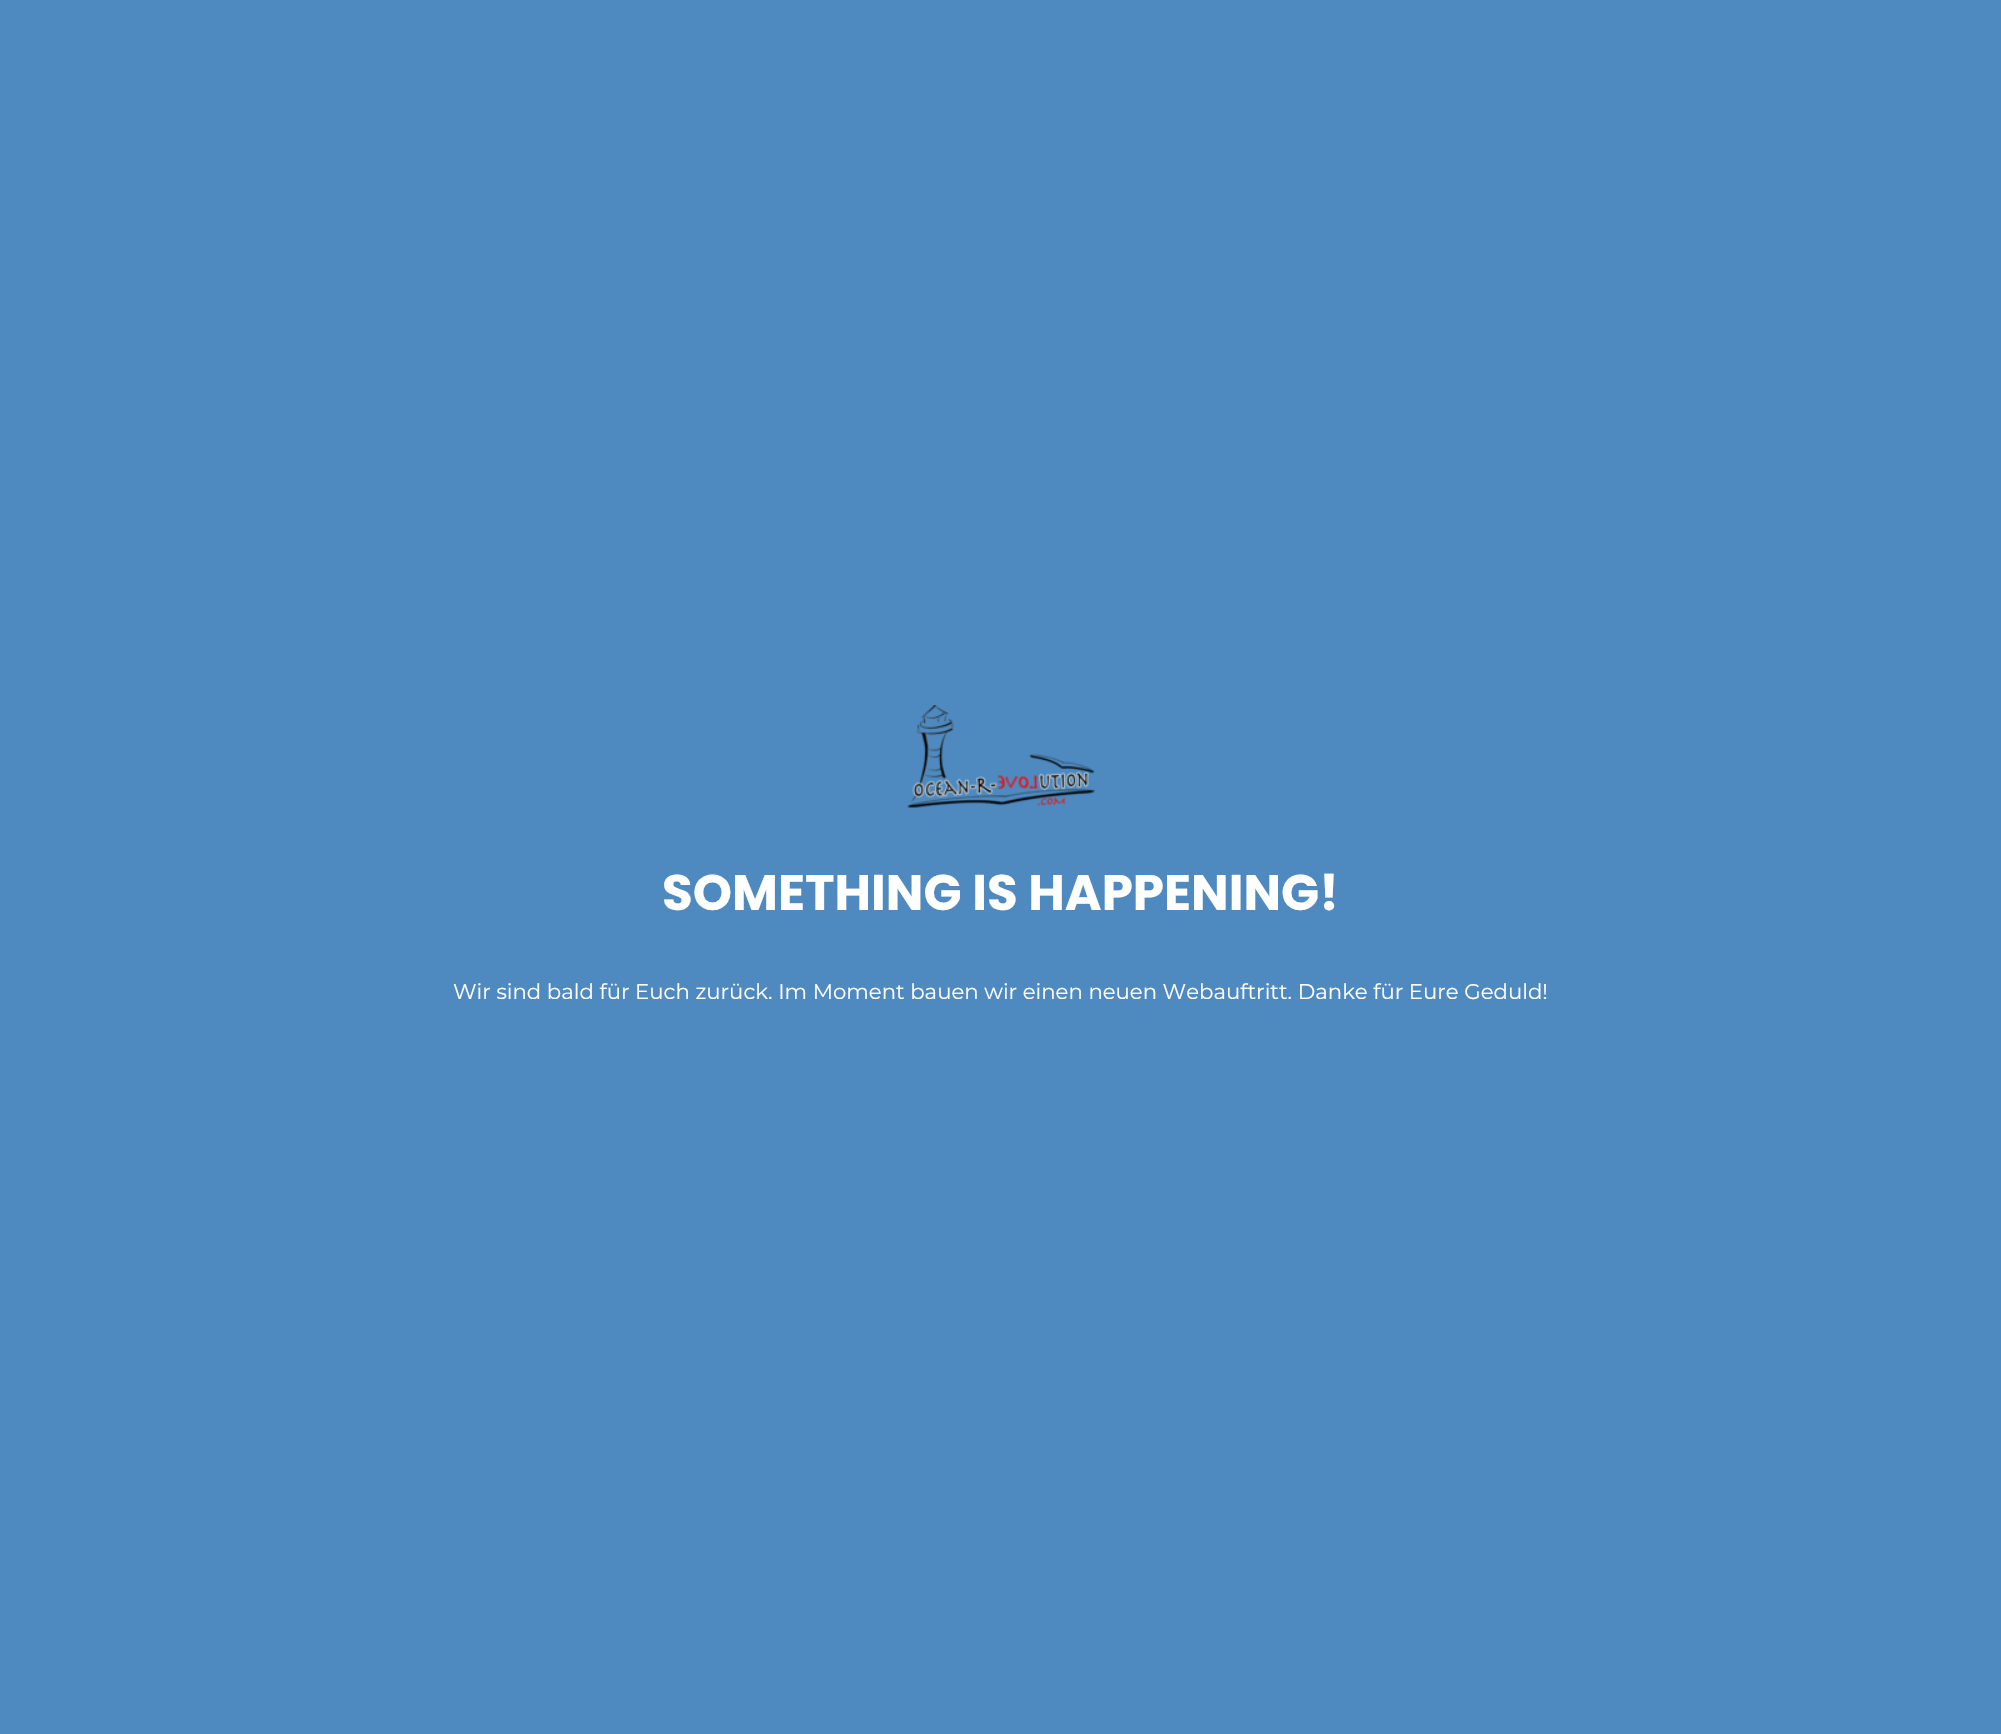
#include "include/core/SkBlurTypes.h"
#include "include/core/SkCanvas.h"
#include "include/core/SkData.h"
#include "include/core/SkFont.h"
#include "include/core/SkFontMgr.h"
#include "include/core/SkImage.h"
#include "include/core/SkMaskFilter.h"
#include "include/core/SkPaint.h"
#include "include/core/SkPathBuilder.h"
#include "include/core/SkTextBlob.h"
#include "include/effects/SkDashPathEffect.h"
#include "include/effects/SkGradientShader.h"
#include "include/utils/SkParsePath.h"

extern sk_sp<SkFontMgr> fontMgr;

void draw(SkCanvas* canvas) {
  SkPaint p;
  p.setAntiAlias(true);
  canvas->clear(SkColorSetRGB(78, 138, 191));
  canvas->drawImageRect(SkImages::DeferredFromEncodedData(SkData::MakeFromFileName("images/1.png")), SkRect::MakeLTRB(907, 705, 1095, 808), SkSamplingOptions());
  SkFont font1(fontMgr->matchFamilyStyle("Poppins", SkFontStyle::Bold()), 50);
  font1.setSubpixel(true);
  p.setColor(SK_ColorWHITE);
  canvas->drawString("SOMETHING IS HAPPENING!", 662, 910, font1, p);
  SkFont font2(fontMgr->matchFamilyStyle("Montserrat", SkFontStyle::Normal()), 21.25f);
  font2.setSubpixel(true);
  canvas->drawString("Wir sind bald für Euch zurück. Im Moment bauen wir einen neuen Webauftritt. Danke für Eure Geduld!", 453, 999, font2, p);
}
